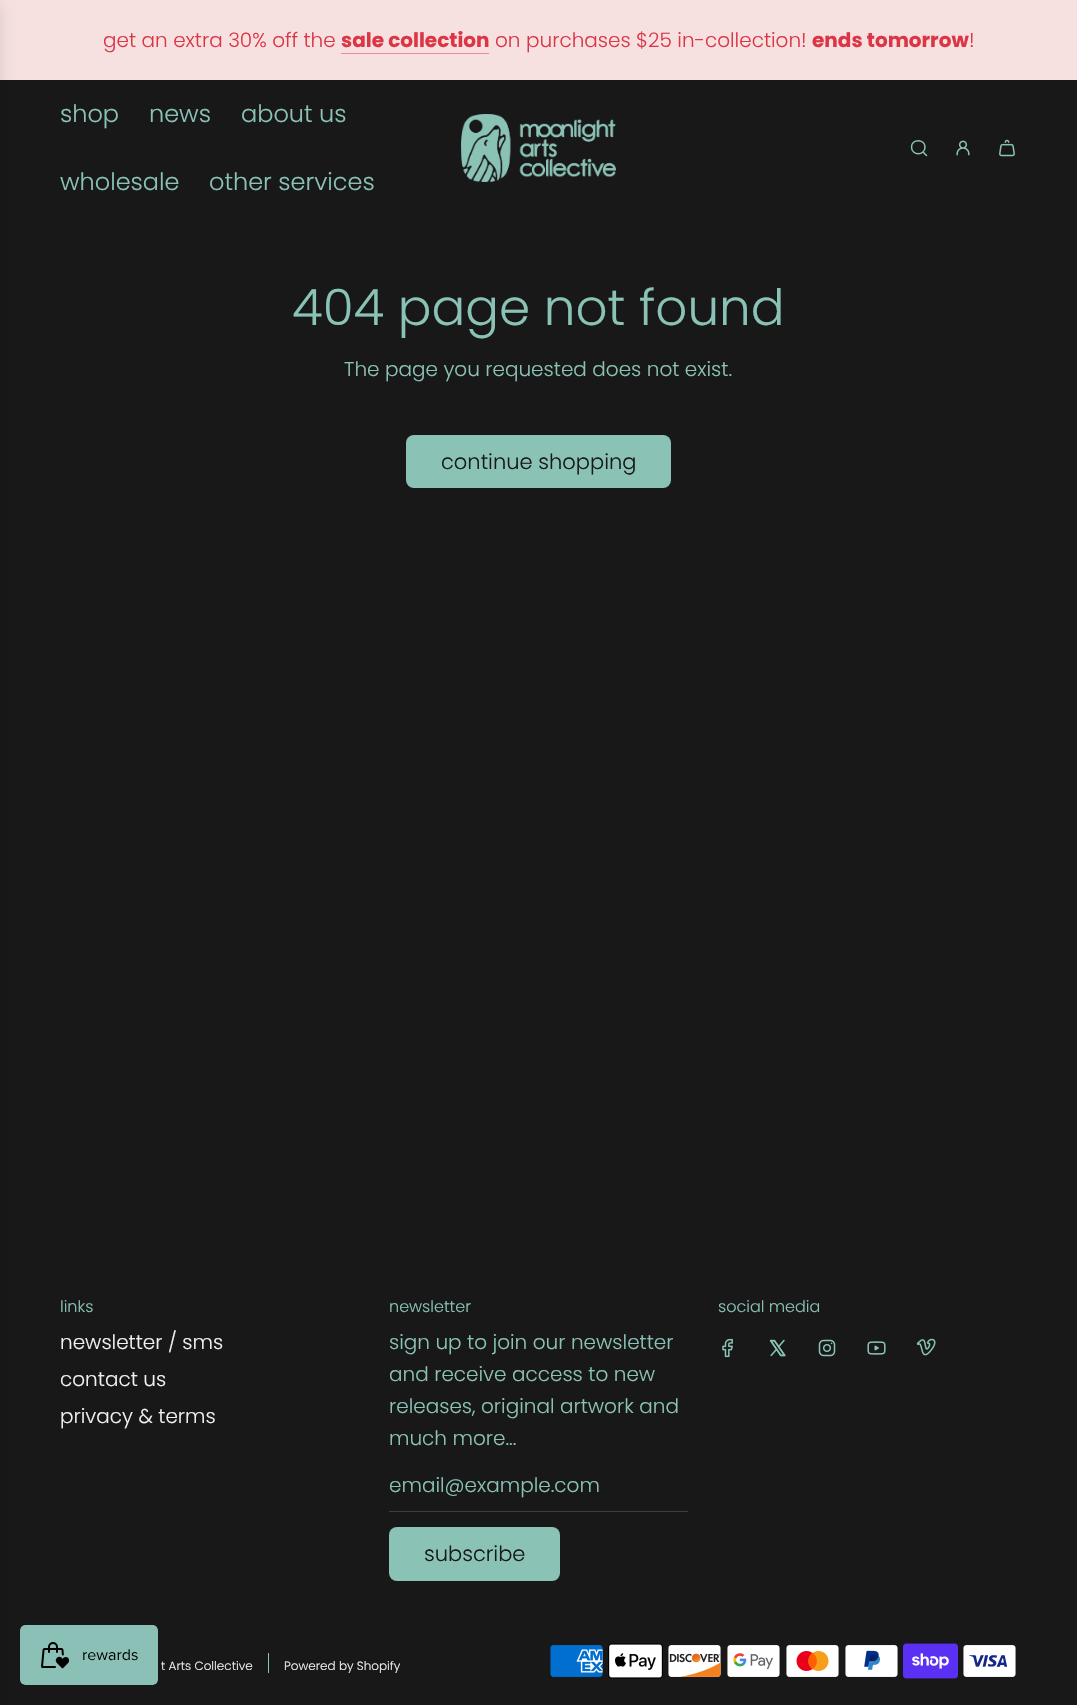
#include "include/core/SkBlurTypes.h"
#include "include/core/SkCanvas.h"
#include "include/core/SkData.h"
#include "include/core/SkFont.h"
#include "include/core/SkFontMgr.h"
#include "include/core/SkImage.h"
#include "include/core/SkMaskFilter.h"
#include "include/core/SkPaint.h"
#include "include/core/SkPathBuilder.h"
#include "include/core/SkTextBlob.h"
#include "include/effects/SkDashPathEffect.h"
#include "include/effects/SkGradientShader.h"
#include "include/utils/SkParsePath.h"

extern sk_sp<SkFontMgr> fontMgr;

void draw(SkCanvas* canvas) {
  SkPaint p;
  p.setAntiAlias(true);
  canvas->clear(SkColorSetRGB(24, 24, 25));
  p.setColor(SkColorSetRGB(246, 224, 224));
  canvas->drawRect(SkRect::MakeLTRB(0, 0, 1077, 80), p);
  p.setColor(SkColorSetRGB(233, 139, 147));
  canvas->drawRect(SkRect::MakeLTRB(341, 53, 489, 54), p);
  p.setColor(SkColorSetARGB(26, 0, 0, 0));
  p.setMaskFilter(SkMaskFilter::MakeBlur(kNormal_SkBlurStyle, 7.5f));
  canvas->drawRect(SkRect::MakeLTRB(-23, 5, 0, 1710), p);
  p.setMaskFilter(nullptr);
  canvas->drawImageRect(SkImages::DeferredFromEncodedData(SkData::MakeFromFileName("images/1.png")), SkRect::MakeLTRB(461, 114, 616, 182), SkSamplingOptions());
  p.setStyle(SkPaint::kStroke_Style);
  p.setStrokeWidth(1.5f);
  p.setStrokeCap(SkPaint::kRound_Cap);
  p.setStrokeJoin(SkPaint::kRound_Join);
  p.setColor(SkColorSetRGB(138, 195, 182));
  canvas->drawPath(SkPathBuilder().moveTo(923, 152).lineTo(926.5f, 155.5f).moveTo(911.5f, 147).cubicTo(911.5f, 156, 925, 156, 925, 147).cubicTo(925, 138.5f, 911.5f, 138.5f, 911.5f, 147).close().detach(), p);
  canvas->drawImageRect(SkImages::DeferredFromEncodedData(SkData::MakeFromFileName("images/2.png")), SkRect::MakeLTRB(956, 140, 970, 156), SkSamplingOptions());
  canvas->drawImageRect(SkImages::DeferredFromEncodedData(SkData::MakeFromFileName("images/3.png")), SkRect::MakeLTRB(999, 139, 1015, 157), SkSamplingOptions());
  p.setStyle(SkPaint::kFill_Style);
  canvas->drawRoundRect(SkRect::MakeLTRB(406, 435, 671, 488), 8, 8, p);
  p.setColor(SkColorSetRGB(53, 67, 64));
  canvas->drawRect(SkRect::MakeLTRB(389, 1511, 688, 1512), p);
  p.setColor(SkColorSetRGB(138, 195, 182));
  canvas->drawRoundRect(SkRect::MakeLTRB(389, 1527, 560, 1581), 8, 8, p);
  canvas->drawImageRect(SkImages::DeferredFromEncodedData(SkData::MakeFromFileName("images/4.png")), SkRect::MakeLTRB(722, 1338, 733, 1358), SkSamplingOptions());
  canvas->drawImageRect(SkImages::DeferredFromEncodedData(SkData::MakeFromFileName("images/5.png")), SkRect::MakeLTRB(769, 1339, 786, 1357), SkSamplingOptions());
  canvas->drawImageRect(SkImages::DeferredFromEncodedData(SkData::MakeFromFileName("images/6.png")), SkRect::MakeLTRB(818, 1339, 836, 1357), SkSamplingOptions());
  canvas->drawImageRect(SkImages::DeferredFromEncodedData(SkData::MakeFromFileName("images/7.png")), SkRect::MakeLTRB(867, 1341, 886, 1355), SkSamplingOptions());
  canvas->drawImageRect(SkImages::DeferredFromEncodedData(SkData::MakeFromFileName("images/8.png")), SkRect::MakeLTRB(916, 1338, 936, 1356), SkSamplingOptions());
  canvas->drawRect(SkRect::MakeLTRB(268, 1653, 269, 1673), p);
  canvas->drawImageRect(SkImages::DeferredFromEncodedData(SkData::MakeFromFileName("images/9.png")), SkRect::MakeLTRB(550, 1645, 603, 1677), SkSamplingOptions());
  canvas->drawImageRect(SkImages::DeferredFromEncodedData(SkData::MakeFromFileName("images/10.png")), SkRect::MakeLTRB(608, 1643, 663, 1679), SkSamplingOptions());
  canvas->drawImageRect(SkImages::DeferredFromEncodedData(SkData::MakeFromFileName("images/11.png")), SkRect::MakeLTRB(668, 1645, 721, 1677), SkSamplingOptions());
  canvas->drawImageRect(SkImages::DeferredFromEncodedData(SkData::MakeFromFileName("images/12.png")), SkRect::MakeLTRB(727, 1645, 780, 1677), SkSamplingOptions());
  canvas->drawImageRect(SkImages::DeferredFromEncodedData(SkData::MakeFromFileName("images/13.png")), SkRect::MakeLTRB(786, 1645, 839, 1677), SkSamplingOptions());
  canvas->drawImageRect(SkImages::DeferredFromEncodedData(SkData::MakeFromFileName("images/14.png")), SkRect::MakeLTRB(845, 1645, 898, 1677), SkSamplingOptions());
  canvas->drawImageRect(SkImages::DeferredFromEncodedData(SkData::MakeFromFileName("images/15.png")), SkRect::MakeLTRB(903, 1643, 958, 1679), SkSamplingOptions());
  canvas->drawImageRect(SkImages::DeferredFromEncodedData(SkData::MakeFromFileName("images/16.png")), SkRect::MakeLTRB(963, 1645, 1016, 1677), SkSamplingOptions());
  canvas->drawImageRect(SkImages::DeferredFromEncodedData(SkData::MakeFromFileName("images/17.png")), SkRect::MakeLTRB(20, 1625, 158, 1685), SkSamplingOptions());
  SkFont font1(fontMgr->matchFamilyStyle("Poppins", SkFontStyle(300, SkFontStyle::kNormal_Width, SkFontStyle::kUpright_Slant)), 20);
  font1.setSubpixel(true);
  p.setColor(SkColorSetRGB(220, 53, 69));
  canvas->drawString("get an extra 30% off the", 103, 47, font1, p);
  SkFont font2(fontMgr->matchFamilyStyle("Poppins", SkFontStyle::Bold()), 20);
  font2.setSubpixel(true);
  canvas->drawString("sale collection", 341, 47, font2, p);
  canvas->drawString("on purchases $25 in-collection!", 495, 47, font1, p);
  canvas->drawString("ends tomorrow", 812, 47, font2, p);
  canvas->drawString("!", 969, 47, font1, p);
  SkFont font3(fontMgr->matchFamilyStyle("Poppins", SkFontStyle(300, SkFontStyle::kNormal_Width, SkFontStyle::kUpright_Slant)), 24);
  font3.setSubpixel(true);
  p.setColor(SkColorSetRGB(138, 195, 182));
  canvas->drawString("shop", 60, 122, font3, p);
  canvas->drawString("news", 149, 122, font3, p);
  canvas->drawString("about us", 241, 122, font3, p);
  canvas->drawString("wholesale", 60, 190, font3, p);
  canvas->drawString("other services", 209, 190, font3, p);
  SkFont font4(fontMgr->matchFamilyStyle("Poppins", SkFontStyle(300, SkFontStyle::kNormal_Width, SkFontStyle::kUpright_Slant)), 50);
  font4.setSubpixel(true);
  canvas->drawString("404 page not found", 292, 325, font4, p);
  canvas->drawString("The page you requested does not exist.", 344, 376, font1, p);
  SkFont font5(fontMgr->matchFamilyStyle("Poppins", SkFontStyle(300, SkFontStyle::kNormal_Width, SkFontStyle::kUpright_Slant)), 21);
  font5.setSubpixel(true);
  p.setColor(SkColorSetRGB(24, 24, 25));
  canvas->drawString("continue shopping", 441, 469, font5, p);
  SkFont font6(fontMgr->matchFamilyStyle("Poppins", SkFontStyle(300, SkFontStyle::kNormal_Width, SkFontStyle::kUpright_Slant)), 16);
  font6.setSubpixel(true);
  p.setColor(SkColorSetRGB(138, 195, 182));
  canvas->drawString("links", 60, 1312, font6, p);
  p.setColor(SkColorSetRGB(241, 241, 241));
  canvas->drawString("newsletter / sms", 60, 1349, font1, p);
  canvas->drawString("contact us", 60, 1386, font1, p);
  canvas->drawString("privacy & terms", 60, 1423, font1, p);
  p.setColor(SkColorSetRGB(138, 195, 182));
  canvas->drawString("newsletter", 389, 1312, font6, p);
  canvas->drawString("sign up to join our newsletter", 389, 1349, font1, p);
  canvas->drawString("and receive access to new", 389, 1381, font1, p);
  canvas->drawString("releases, original artwork and", 389, 1413, font1, p);
  canvas->drawString("much more...", 389, 1445, font1, p);
  canvas->drawString("email@example.com", 389, 1492, font1, p);
  p.setColor(SkColorSetRGB(24, 24, 25));
  canvas->drawString("subscribe", 424, 1561, font5, p);
  p.setColor(SkColorSetRGB(138, 195, 182));
  canvas->drawString("social media", 718, 1312, font6, p);
  SkFont font7(fontMgr->matchFamilyStyle("Poppins", SkFontStyle(300, SkFontStyle::kNormal_Width, SkFontStyle::kUpright_Slant)), 12);
  font7.setSubpixel(true);
  p.setColor(SkColorSetRGB(241, 241, 241));
  canvas->drawString("t Arts Collective", 161, 1670, font7, p);
  canvas->drawString("Powered by Shopify", 284, 1670, font7, p);
}
